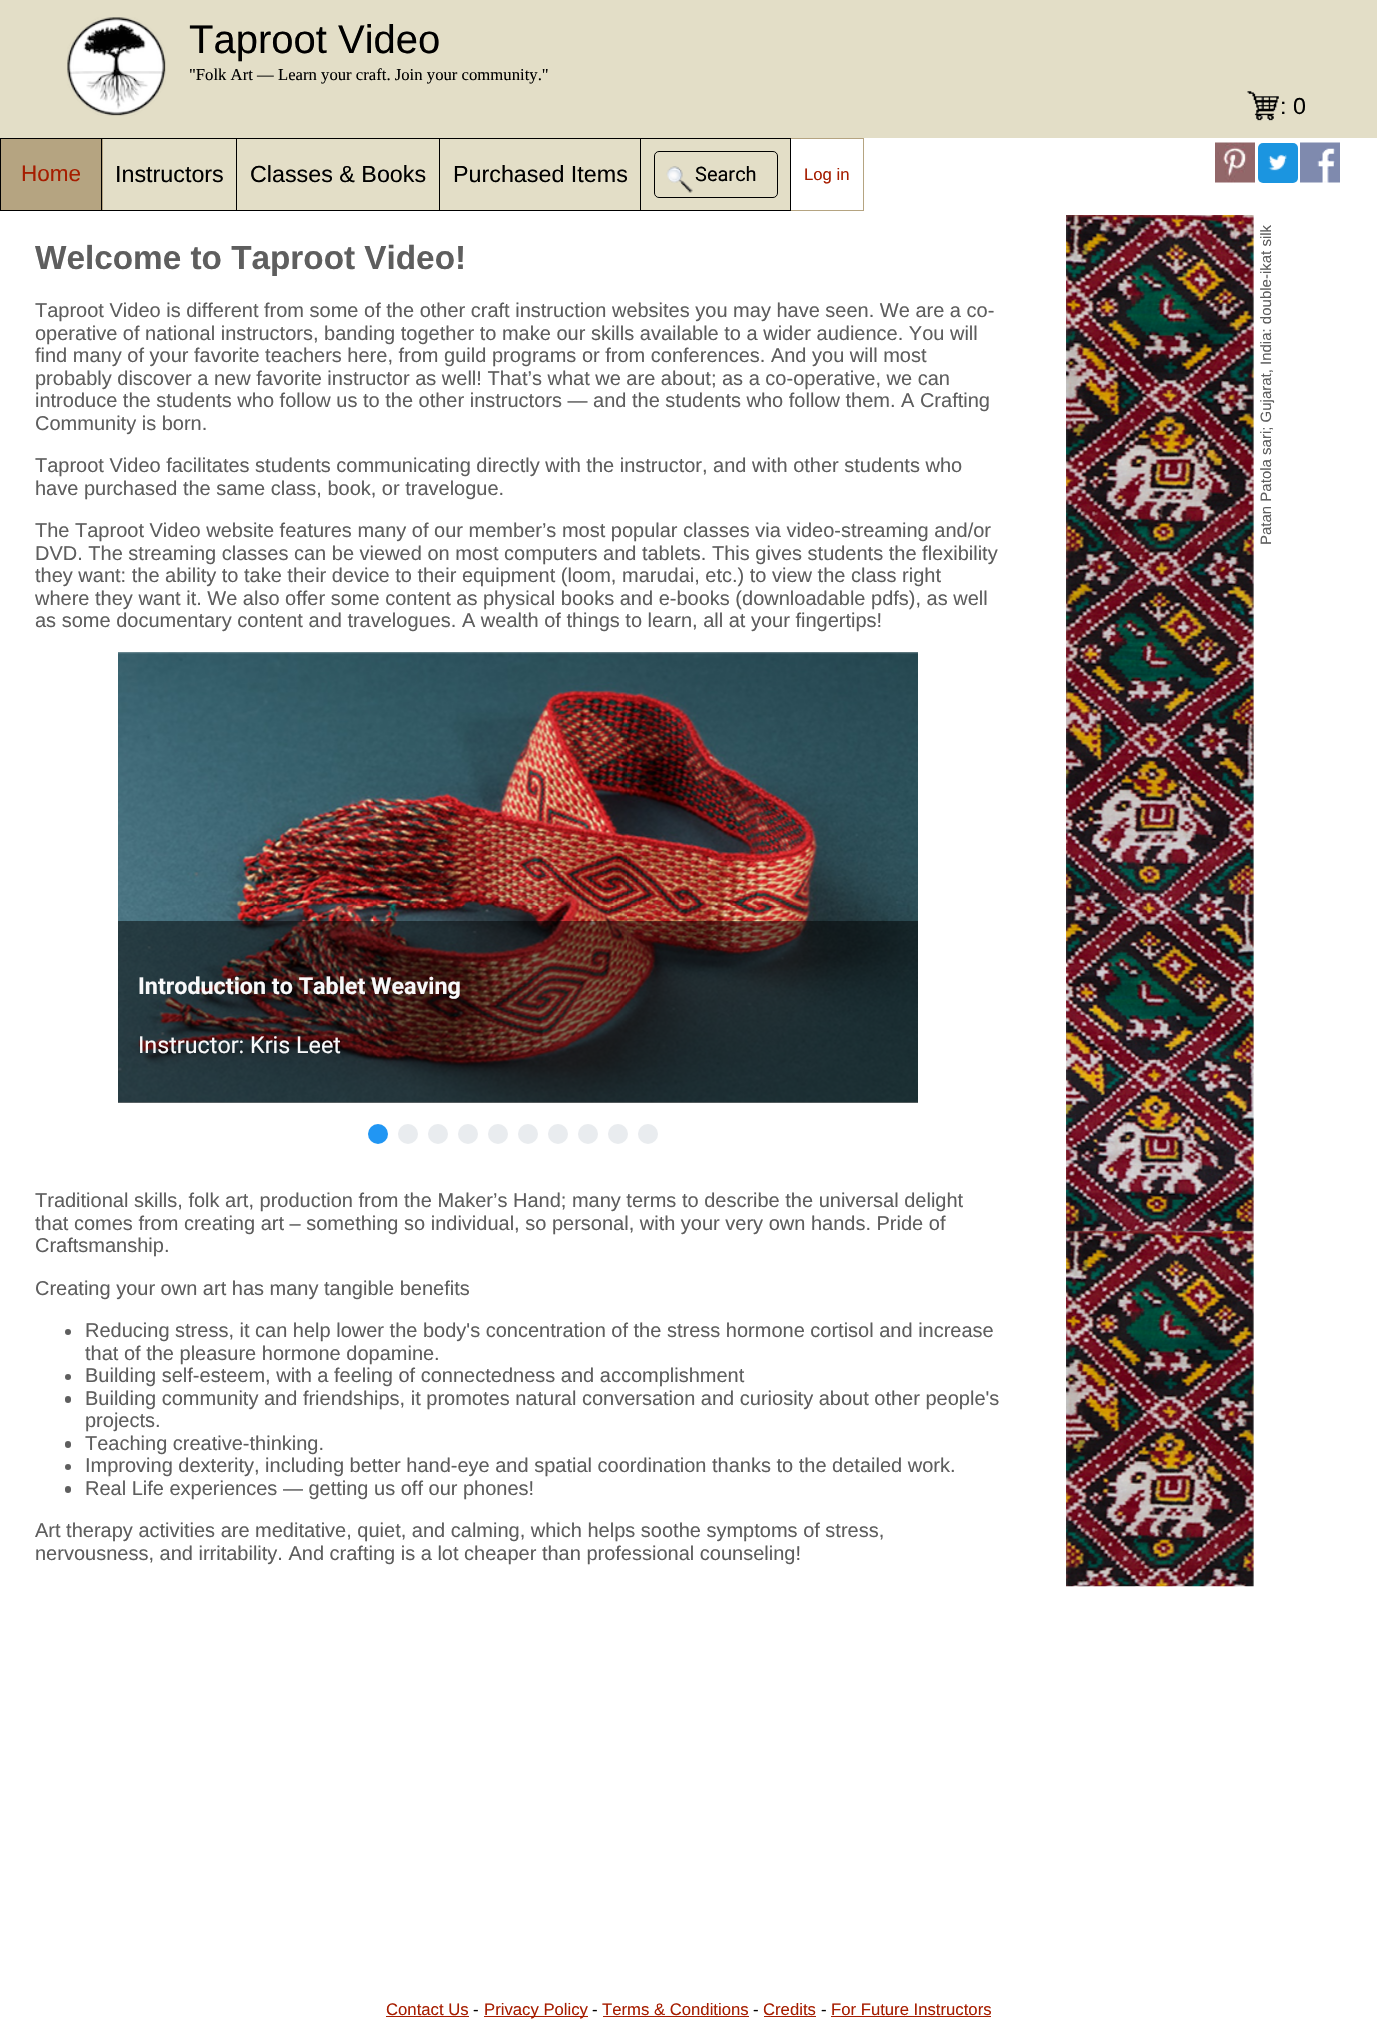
#include "include/core/SkBlurTypes.h"
#include "include/core/SkCanvas.h"
#include "include/core/SkData.h"
#include "include/core/SkFont.h"
#include "include/core/SkFontMgr.h"
#include "include/core/SkImage.h"
#include "include/core/SkMaskFilter.h"
#include "include/core/SkPaint.h"
#include "include/core/SkPathBuilder.h"
#include "include/core/SkTextBlob.h"
#include "include/effects/SkDashPathEffect.h"
#include "include/effects/SkGradientShader.h"
#include "include/utils/SkParsePath.h"

extern sk_sp<SkFontMgr> fontMgr;

void draw(SkCanvas* canvas) {
  SkPaint p;
  p.setAntiAlias(true);
  canvas->clear(SK_ColorWHITE);
  p.setColor(SkColorSetRGB(227, 222, 199));
  canvas->drawRect(SkRect::MakeLTRB(0, 0, 1377, 138), p);
  canvas->drawImageRect(SkImages::DeferredFromEncodedData(SkData::MakeFromFileName("images/1.png")), SkRect::MakeLTRB(67, 17, 166, 116), SkSamplingOptions());
  canvas->drawImageRect(SkImages::DeferredFromEncodedData(SkData::MakeFromFileName("images/2.png")), SkRect::MakeLTRB(1247, 91, 1279, 121), SkSamplingOptions());
  canvas->drawRect(SkRect::MakeLTRB(103, 139, 790, 210), p);
  p.setColor(SkColorSetRGB(181, 164, 129));
  canvas->drawRect(SkRect::MakeLTRB(1, 139, 103, 210), p);
  canvas->drawRect(SkRect::MakeLTRB(790, 138, 864, 139), p);
  p.setColor(SK_ColorBLACK);
  canvas->drawRect(SkRect::MakeLTRB(640, 138, 791, 139), p);
  p.setColor(SkColorSetRGB(181, 164, 129));
  canvas->drawRect(SkRect::MakeLTRB(863, 138, 864, 211), p);
  canvas->drawRect(SkRect::MakeLTRB(790, 210, 864, 211), p);
  p.setColor(SK_ColorBLACK);
  canvas->drawRect(SkRect::MakeLTRB(790, 138, 791, 211), p);
  canvas->drawRect(SkRect::MakeLTRB(640, 210, 791, 211), p);
  canvas->drawRect(SkRect::MakeLTRB(640, 138, 641, 211), p);
  canvas->drawRect(SkRect::MakeLTRB(439, 138, 641, 139), p);
  canvas->drawRect(SkRect::MakeLTRB(439, 210, 641, 211), p);
  canvas->drawRect(SkRect::MakeLTRB(439, 138, 440, 211), p);
  canvas->drawRect(SkRect::MakeLTRB(236, 138, 440, 139), p);
  canvas->drawRect(SkRect::MakeLTRB(236, 210, 440, 211), p);
  canvas->drawRect(SkRect::MakeLTRB(236, 138, 237, 211), p);
  canvas->drawRect(SkRect::MakeLTRB(101, 138, 238, 139), p);
  canvas->drawRect(SkRect::MakeLTRB(101, 210, 238, 211), p);
  canvas->drawRect(SkRect::MakeLTRB(101, 138, 102, 211), p);
  canvas->drawRect(SkRect::MakeLTRB(0, 138, 103, 139), p);
  canvas->drawRect(SkRect::MakeLTRB(0, 210, 103, 211), p);
  canvas->drawRect(SkRect::MakeLTRB(0, 138, 1, 211), p);
  p.setStyle(SkPaint::kStroke_Style);
  p.setStrokeWidth(1);
  canvas->drawRoundRect(SkRect::MakeLTRB(654.5f, 151.5f, 777.5f, 197.5f), 4.5f, 4.5f, p);
  canvas->drawImageRect(SkImages::DeferredFromEncodedData(SkData::MakeFromFileName("images/3.png")), SkRect::MakeLTRB(666, 166, 693, 193), SkSamplingOptions());
  canvas->drawImageRect(SkImages::DeferredFromEncodedData(SkData::MakeFromFileName("images/4.png")), SkRect::MakeLTRB(1215, 142, 1255, 183), SkSamplingOptions());
  p.setStyle(SkPaint::kFill_Style);
  p.setColor(SkColorSetRGB(27, 149, 224));
  canvas->drawRoundRect(SkRect::MakeLTRB(1258, 143, 1298, 183), 5, 5, p);
  canvas->drawImageRect(SkImages::DeferredFromEncodedData(SkData::MakeFromFileName("images/5.png")), SkRect::MakeLTRB(1268, 154, 1287, 171), SkSamplingOptions());
  canvas->drawImageRect(SkImages::DeferredFromEncodedData(SkData::MakeFromFileName("images/6.png")), SkRect::MakeLTRB(1300, 142, 1340, 183), SkSamplingOptions());
  canvas->drawImageRect(SkImages::DeferredFromEncodedData(SkData::MakeFromFileName("images/7.png")), SkRect::MakeLTRB(118, 652, 918, 1103), SkSamplingOptions());
  p.setColor(SkColorSetARGB(128, 0, 0, 0));
  canvas->drawRect(SkRect::MakeLTRB(118, 921, 918, 1103), p);
  p.setColor(SkColorSetRGB(33, 150, 243));
  canvas->drawCircle(378, 1134, 10, p);
  p.setColor(SkColorSetRGB(233, 236, 239));
  canvas->drawCircle(408, 1134, 10, p);
  canvas->drawCircle(438, 1134, 10, p);
  canvas->drawCircle(468, 1134, 10, p);
  canvas->drawCircle(498, 1134, 10, p);
  canvas->drawCircle(528, 1134, 10, p);
  canvas->drawCircle(558, 1134, 10, p);
  canvas->drawCircle(588, 1134, 10, p);
  canvas->drawCircle(618, 1134, 10, p);
  canvas->drawCircle(648, 1134, 10, p);
  p.setColor(SkColorSetRGB(94, 94, 94));
  canvas->drawCircle(68, 1332, 3, p);
  canvas->drawCircle(68, 1377, 3, p);
  canvas->drawRoundRect(SkRect::MakeLTRB(65, 1396, 71, 1403), 3, 3, p);
  canvas->drawRoundRect(SkRect::MakeLTRB(65, 1441, 71, 1448), 3, 3, p);
  canvas->drawCircle(68, 1467, 3, p);
  canvas->drawRoundRect(SkRect::MakeLTRB(65, 1486, 71, 1493), 3, 3, p);
  canvas->drawImageRect(SkImages::DeferredFromEncodedData(SkData::MakeFromFileName("images/8.png")), SkRect::MakeLTRB(1066, 215, 1254, 1587), SkSamplingOptions());
  p.setColor(SkColorSetRGB(166, 29, 0));
  canvas->drawRect(SkRect::MakeLTRB(386, 2016, 469, 2017), p);
  canvas->drawRect(SkRect::MakeLTRB(484, 2016, 588, 2017), p);
  canvas->drawRect(SkRect::MakeLTRB(603, 2016, 749, 2017), p);
  canvas->drawRect(SkRect::MakeLTRB(764, 2016, 816, 2017), p);
  canvas->drawRect(SkRect::MakeLTRB(831, 2016, 991, 2017), p);
  SkFont font1(fontMgr->matchFamilyStyle("Liberation Sans", SkFontStyle::Normal()), 40);
  font1.setSubpixel(true);
  p.setColor(SK_ColorBLACK);
  canvas->drawString("Taproot Video", 189, 53, font1, p);
  SkFont font2(fontMgr->matchFamilyStyle("Liberation Serif", SkFontStyle::Normal()), 16.7f);
  font2.setSubpixel(true);
  canvas->drawString("\"Folk Art — Learn your craft. Join your community.\"", 189, 80, font2, p);
  SkFont font3(fontMgr->matchFamilyStyle("Liberation Sans", SkFontStyle::Normal()), 23.3f);
  font3.setSubpixel(true);
  canvas->drawString(": 0", 1280, 114, font3, p);
  SkFont font4(fontMgr->matchFamilyStyle("Liberation Sans", SkFontStyle::Normal()), 22.5f);
  font4.setSubpixel(true);
  p.setColor(SkColorSetRGB(166, 29, 0));
  canvas->drawString("Home", 21, 181, font4, p);
  p.setColor(SK_ColorBLACK);
  canvas->drawString("Instructors", 115, 182, font3, p);
  canvas->drawString("Classes & Books", 250, 182, font3, p);
  canvas->drawString("Purchased Items", 453, 182, font3, p);
  SkFont font5(fontMgr->matchFamilyStyle("Roboto", SkFontStyle::Normal()), 20);
  font5.setSubpixel(true);
  canvas->drawString("Search", 695, 181, font5, p);
  SkFont font6(fontMgr->matchFamilyStyle("Liberation Sans", SkFontStyle::Normal()), 16.7f);
  font6.setSubpixel(true);
  p.setColor(SkColorSetRGB(166, 29, 0));
  canvas->drawString("Log in", 804, 180, font6, p);
  SkFont font7(fontMgr->matchFamilyStyle("Liberation Sans", SkFontStyle::Bold()), 33.3f);
  font7.setSubpixel(true);
  p.setColor(SkColorSetRGB(94, 94, 94));
  canvas->drawString("Welcome to Taproot Video!", 35, 269, font7, p);
  SkFont font8(fontMgr->matchFamilyStyle("Liberation Sans", SkFontStyle::Normal()), 20);
  font8.setSubpixel(true);
  canvas->drawString("Taproot Video is different from some of the other craft instruction websites you may have seen. We are a co-", 35, 317, font8, p);
  canvas->drawString("operative of national instructors, banding together to make our skills available to a wider audience. You will", 35, 340, font8, p);
  canvas->drawString("find many of your favorite teachers here, from guild programs or from conferences. And you will most", 35, 362, font8, p);
  canvas->drawString("probably discover a new favorite instructor as well! That’s what we are about; as a co-operative, we can", 35, 385, font8, p);
  canvas->drawString("introduce the students who follow us to the other instructors — and the students who follow them. A Crafting", 35, 407, font8, p);
  canvas->drawString("Community is born.", 35, 430, font8, p);
  canvas->drawString("Taproot Video facilitates students communicating directly with the instructor, and with other students who", 35, 472, font8, p);
  canvas->drawString("have purchased the same class, book, or travelogue.", 35, 495, font8, p);
  canvas->drawString("The Taproot Video website features many of our member’s most popular classes via video-streaming and/or", 35, 537, font8, p);
  canvas->drawString("DVD. The streaming classes can be viewed on most computers and tablets. This gives students the flexibility", 35, 560, font8, p);
  canvas->drawString("they want: the ability to take their device to their equipment (loom, marudai, etc.) to view the class right", 35, 582, font8, p);
  canvas->drawString("where they want it. We also offer some content as physical books and e-books (downloadable pdfs), as well", 35, 605, font8, p);
  canvas->drawString("as some documentary content and travelogues. A wealth of things to learn, all at your fingertips!", 35, 627, font8, p);
  SkFont font9(fontMgr->matchFamilyStyle("Roboto", SkFontStyle::Bold()), 23.3f);
  font9.setSubpixel(true);
  p.setColor(SkColorSetRGB(248, 249, 250));
  canvas->drawString("Introduction to Tablet Weaving", 138, 994, font9, p);
  SkFont font10(fontMgr->matchFamilyStyle("Roboto", SkFontStyle::Normal()), 23.3f);
  font10.setSubpixel(true);
  canvas->drawString("Instructor: Kris Leet", 138, 1053, font10, p);
  p.setColor(SkColorSetRGB(94, 94, 94));
  canvas->drawString("Traditional skills, folk art, production from the Maker’s Hand; many terms to describe the universal delight", 35, 1207, font8, p);
  canvas->drawString("that comes from creating art – something so individual, so personal, with your very own hands. Pride of", 35, 1230, font8, p);
  canvas->drawString("Craftsmanship.", 35, 1252, font8, p);
  canvas->drawString("Creating your own art has many tangible benefits", 35, 1295, font8, p);
  canvas->drawString("Reducing stress, it can help lower the body's concentration of the stress hormone cortisol and increase", 85, 1337, font8, p);
  canvas->drawString("that of the pleasure hormone dopamine.", 85, 1360, font8, p);
  canvas->drawString("Building self-esteem, with a feeling of connectedness and accomplishment", 85, 1382, font8, p);
  canvas->drawString("Building community and friendships, it promotes natural conversation and curiosity about other people's", 85, 1405, font8, p);
  canvas->drawString("projects.", 85, 1427, font8, p);
  canvas->drawString("Teaching creative-thinking.", 85, 1450, font8, p);
  canvas->drawString("Improving dexterity, including better hand-eye and spatial coordination thanks to the detailed work.", 85, 1472, font8, p);
  canvas->drawString("Real Life experiences — getting us off our phones!", 85, 1495, font8, p);
  canvas->drawString("Art therapy activities are meditative, quiet, and calming, which helps soothe symptoms of stress,", 35, 1537, font8, p);
  canvas->drawString("nervousness, and irritability. And crafting is a lot cheaper than professional counseling!", 35, 1560, font8, p);
  SkFont font11(fontMgr->matchFamilyStyle("Liberation Sans", SkFontStyle::Normal()), 15);
  font11.setSubpixel(true);
  canvas->save();
  canvas->rotate(-90, 1271, 365);
  canvas->drawString("India: double-ikat silk", 1271, 365, font11, p);
  canvas->restore();
  canvas->save();
  canvas->rotate(-90, 1271, 545);
  canvas->drawString("Patan Patola sari; Gujarat,", 1271, 545, font11, p);
  canvas->restore();
  p.setColor(SkColorSetRGB(166, 29, 0));
  canvas->drawString("Contact Us", 386, 2015, font6, p);
  p.setColor(SK_ColorBLACK);
  canvas->drawString("-", 473, 2015, font6, p);
  p.setColor(SkColorSetRGB(166, 29, 0));
  canvas->drawString("Privacy Policy", 484, 2015, font6, p);
  p.setColor(SK_ColorBLACK);
  canvas->drawString("-", 592, 2015, font6, p);
  p.setColor(SkColorSetRGB(166, 29, 0));
  canvas->drawString("Terms & Conditions", 602, 2015, font6, p);
  p.setColor(SK_ColorBLACK);
  canvas->drawString("-", 753, 2015, font6, p);
  p.setColor(SkColorSetRGB(166, 29, 0));
  canvas->drawString("Credits", 763, 2015, font6, p);
  p.setColor(SK_ColorBLACK);
  canvas->drawString("-", 821, 2015, font6, p);
  p.setColor(SkColorSetRGB(166, 29, 0));
  canvas->drawString("For Future Instructors", 831, 2015, font6, p);
}
